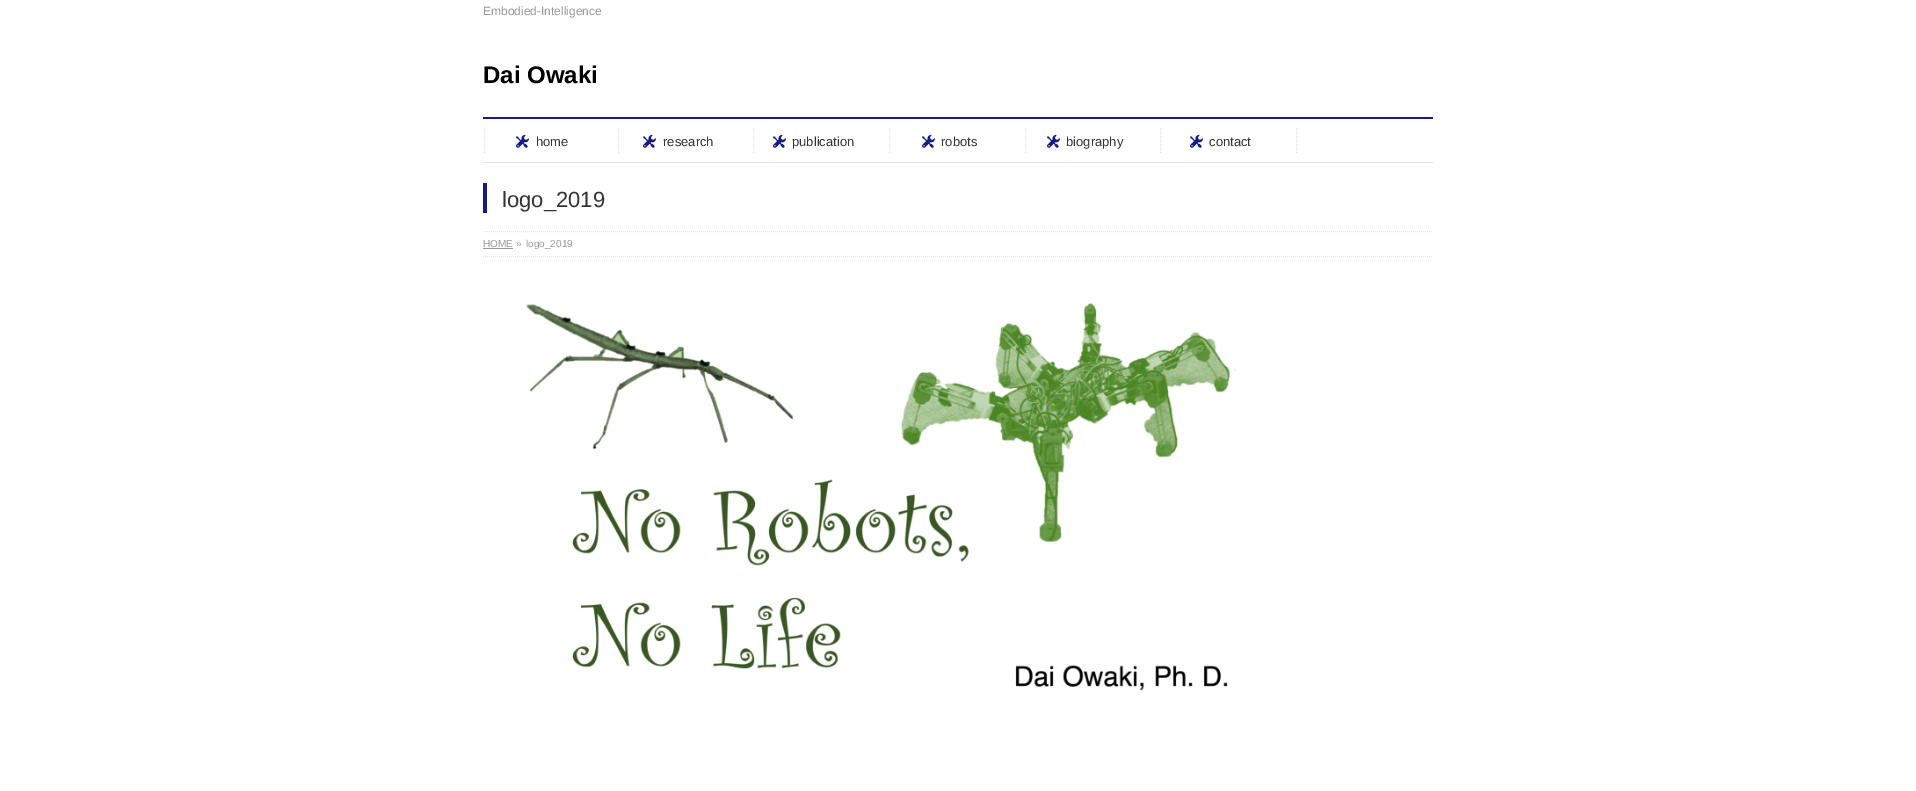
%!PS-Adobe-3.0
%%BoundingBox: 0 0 1916 791
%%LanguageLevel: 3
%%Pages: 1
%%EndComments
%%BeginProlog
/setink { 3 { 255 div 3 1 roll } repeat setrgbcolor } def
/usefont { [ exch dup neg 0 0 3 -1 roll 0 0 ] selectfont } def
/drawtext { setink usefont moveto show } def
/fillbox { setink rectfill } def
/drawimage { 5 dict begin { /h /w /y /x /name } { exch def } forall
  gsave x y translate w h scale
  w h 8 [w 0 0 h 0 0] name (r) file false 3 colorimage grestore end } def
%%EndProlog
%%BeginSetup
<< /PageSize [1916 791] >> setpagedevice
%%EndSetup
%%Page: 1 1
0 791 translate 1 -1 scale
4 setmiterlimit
0 0 1916 791 255 255 255 fillbox
(Embodied-Intelligence) 483 15 /LiberationSans-Regular 12 153 153 153 drawtext
(Dai Owaki) 483 83 /LiberationSans-Bold 24 0 0 0 drawtext
483 117 950 2 21 26 132 fillbox
483 162 950 1 229 229 229 fillbox
[1 1] 0 setdash
484.5 128 moveto 484.5 154 lineto stroke
(assets/img1.rgb) 516 134 13 14 drawimage
(home) 536 146 /LiberationSans-Regular 13 51 51 51 drawtext
229 229 229 setink
618.5 128 moveto 618.5 154 lineto stroke
(assets/img1.rgb) 643 134 13 14 drawimage
(research) 663 146 /LiberationSans-Regular 13 51 51 51 drawtext
229 229 229 setink
753.5 128 moveto 753.5 154 lineto stroke
(assets/img1.rgb) 773 134 13 14 drawimage
(publication) 792 146 /LiberationSans-Regular 13 51 51 51 drawtext
229 229 229 setink
889.5 128 moveto 889.5 154 lineto stroke
(assets/img1.rgb) 922 134 13 14 drawimage
(robots) 941 146 /LiberationSans-Regular 13 51 51 51 drawtext
229 229 229 setink
1025.5 128 moveto 1025.5 154 lineto stroke
(assets/img1.rgb) 1047 134 13 14 drawimage
(biography) 1066 146 /LiberationSans-Regular 13 51 51 51 drawtext
229 229 229 setink
1160.5 128 moveto 1160.5 154 lineto stroke
(assets/img1.rgb) 1190 134 13 14 drawimage
(contact) 1209 146 /LiberationSans-Regular 13 51 51 51 drawtext
229 229 229 setink
1296.5 128 moveto 1296.5 154 lineto stroke
483 183 4 30 21 26 132 fillbox
(logo_2019) 502 207 /LiberationSans-Regular 22 51 51 51 drawtext
229 229 229 setink
483 231.5 moveto 1433 231.5 lineto stroke
483 256.5 moveto 1433 256.5 lineto stroke
(HOME ») 483 247 /LiberationSans-Regular 10 153 153 153 drawtext
483 248 30 1 153 153 153 fillbox
(logo_2019) 526 247 /LiberationSans-Regular 10 153 153 153 drawtext
(assets/img2.rgb) 526 303 710 388 drawimage
showpage
%%EOF
